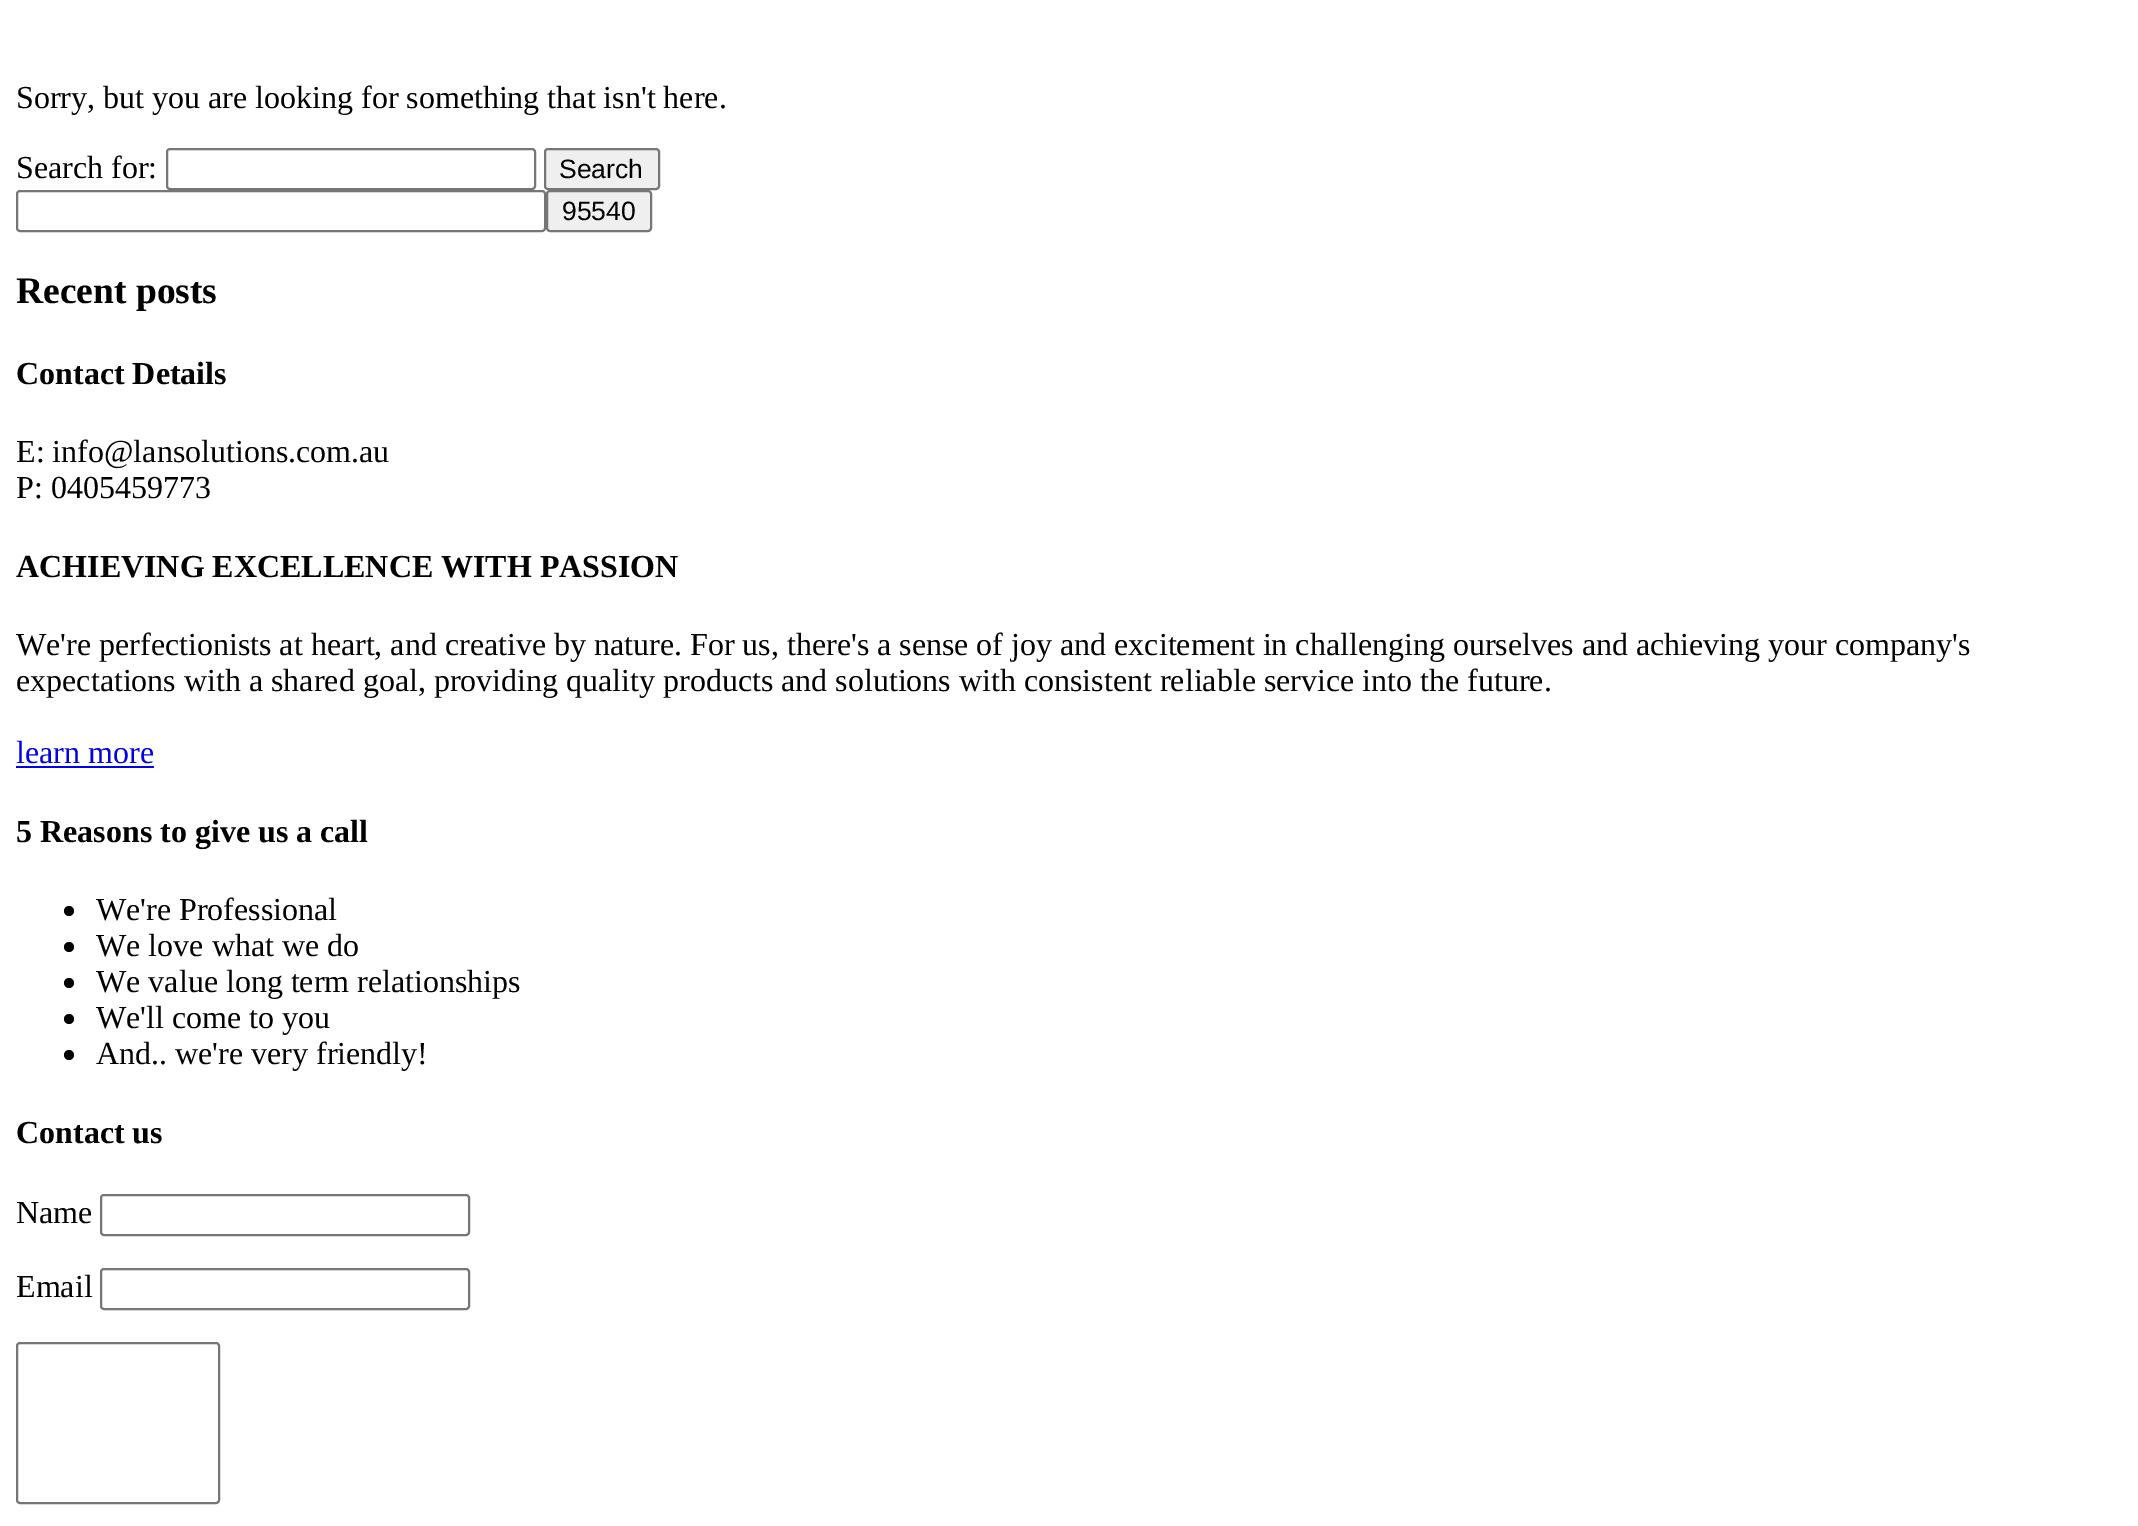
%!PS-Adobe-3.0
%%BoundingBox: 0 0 2138 1526
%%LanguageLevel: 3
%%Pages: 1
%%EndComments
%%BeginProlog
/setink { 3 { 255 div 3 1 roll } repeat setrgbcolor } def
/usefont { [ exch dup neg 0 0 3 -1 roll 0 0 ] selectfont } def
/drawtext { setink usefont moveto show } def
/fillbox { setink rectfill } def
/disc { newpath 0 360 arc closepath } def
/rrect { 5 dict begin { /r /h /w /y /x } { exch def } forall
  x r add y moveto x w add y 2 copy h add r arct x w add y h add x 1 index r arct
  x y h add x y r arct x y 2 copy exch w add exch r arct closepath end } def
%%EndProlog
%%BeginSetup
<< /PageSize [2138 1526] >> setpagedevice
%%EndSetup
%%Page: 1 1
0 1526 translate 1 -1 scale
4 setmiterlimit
0 0 2138 1526 255 255 255 fillbox
(Sorry, but you are looking for something that isn't here.) 16 108 /LiberationSerif-Regular 32 0 0 0 drawtext
(Search for:) 16 178 /LiberationSerif-Regular 32 0 0 0 drawtext
118 118 118 setink
2 setlinewidth
167 149 368 40 3 rrect stroke
239 239 239 setink
545 149 114 40 3 rrect gsave fill grestore
118 118 118 setink
stroke
(Search) 559 178 /LiberationSans-Regular 26.5 0 0 0 drawtext
118 118 118 setink
17 191 528 40 3 rrect stroke
239 239 239 setink
547 191 104 40 3 rrect gsave fill grestore
118 118 118 setink
stroke
(95540) 562 220 /LiberationSans-Regular 26.5 0 0 0 drawtext
(Recent posts) 16 303 /LiberationSerif-Bold 37.5 0 0 0 drawtext
(Contact Details) 16 384 /LiberationSerif-Bold 32 0 0 0 drawtext
(E: info@lansolutions.com.au) 16 462 /LiberationSerif-Regular 32 0 0 0 drawtext
(P: 0405459773) 16 498 /LiberationSerif-Regular 32 0 0 0 drawtext
(ACHIEVING EXCELLENCE WITH PASSION) 16 577 /LiberationSerif-Bold 32 0 0 0 drawtext
(We're perfectionists at heart, and creative by nature. For us, there's a sense of joy and excitement in challenging ourselves and achieving your company's) 16 655 /LiberationSerif-Regular 32 0 0 0 drawtext
(expectations with a shared goal, providing quality products and solutions with consistent reliable service into the future.) 16 691 /LiberationSerif-Regular 32 0 0 0 drawtext
(learn more) 16 763 /LiberationSerif-Regular 32 0 0 238 drawtext
16 766 138 2 0 0 238 fillbox
(5 Reasons to give us a call) 16 842 /LiberationSerif-Bold 32 0 0 0 drawtext
69 911 5 disc fill
(We're Professional) 96 920 /LiberationSerif-Regular 32 0 0 0 drawtext
69 947 5 disc fill
(We love what we do) 96 956 /LiberationSerif-Regular 32 0 0 0 drawtext
69 983 5 disc fill
(We value long term relationships) 96 992 /LiberationSerif-Regular 32 0 0 0 drawtext
69 1019 5 disc fill
(We'll come to you) 96 1028 /LiberationSerif-Regular 32 0 0 0 drawtext
69 1055 5 disc fill
(And.. we're very friendly!) 96 1064 /LiberationSerif-Regular 32 0 0 0 drawtext
(Contact us) 16 1143 /LiberationSerif-Bold 32 0 0 0 drawtext
(Name) 16 1223 /LiberationSerif-Regular 32 0 0 0 drawtext
118 118 118 setink
101 1195 368 40 3 rrect stroke
(Email) 16 1297 /LiberationSerif-Regular 32 0 0 0 drawtext
118 118 118 setink
101 1269 368 40 3 rrect stroke
17 1343 202 160 3 rrect stroke
showpage
%%EOF
